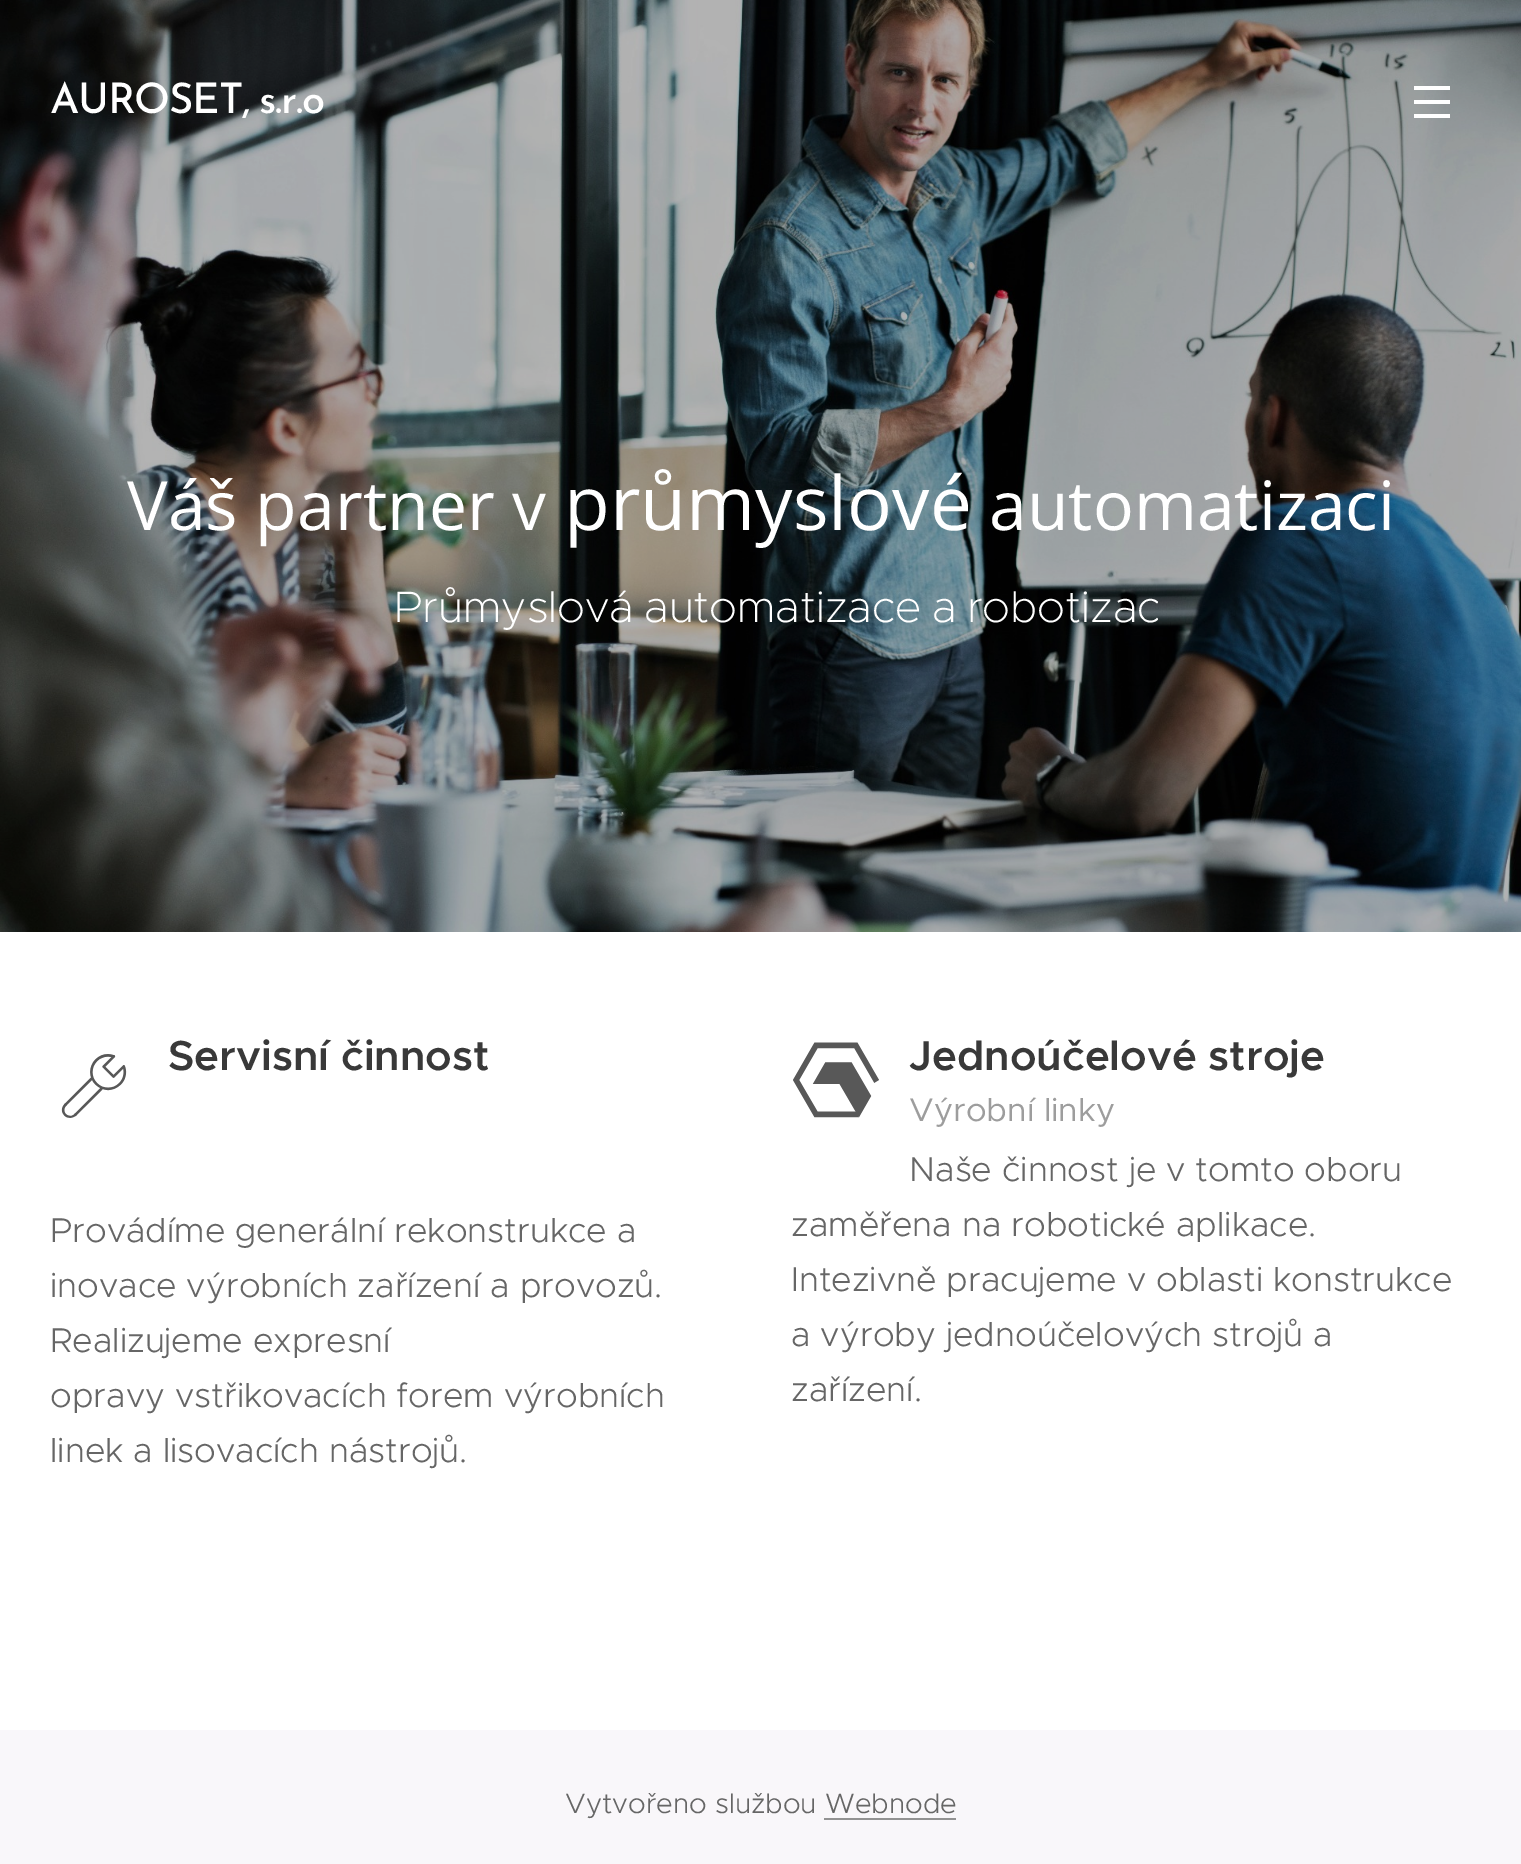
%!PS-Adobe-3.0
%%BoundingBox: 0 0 1521 1864
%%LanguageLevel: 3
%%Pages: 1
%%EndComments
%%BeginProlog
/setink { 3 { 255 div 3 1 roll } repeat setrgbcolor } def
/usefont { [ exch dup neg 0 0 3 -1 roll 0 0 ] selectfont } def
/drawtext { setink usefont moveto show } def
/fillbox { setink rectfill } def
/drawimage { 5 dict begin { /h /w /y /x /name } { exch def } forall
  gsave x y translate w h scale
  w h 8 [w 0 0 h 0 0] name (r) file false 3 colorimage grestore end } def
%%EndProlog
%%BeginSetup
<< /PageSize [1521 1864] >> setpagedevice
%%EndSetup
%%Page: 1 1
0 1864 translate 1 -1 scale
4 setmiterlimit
0 0 1521 1864 255 255 255 fillbox
(assets/img1.rgb) 0 0 1521 932 drawimage
/JosefinSans-Medium 42 usefont
50 113 moveto -2 0 32 -1.25 0 (AUROSET, s.r.o) awidthshow
1414 100 36 4 255 255 255 fillbox
1414 86 36 4 255 255 255 fillbox
1414 114 36 4 255 255 255 fillbox
(Váš partner v) 127 530 /OpenSans-Regular 68 255 255 255 drawtext
(průmyslové) 564 530 /OpenSans-Regular 74.75 255 255 255 drawtext
(automatizaci) 989 530 /OpenSans-Regular 68 255 255 255 drawtext
gsave
364 566 794 86 rectclip
/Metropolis-ExtraLight 44 usefont
394 622 moveto -2.5 0 32 (Průmyslová automatizace a robotizac) widthshow
grestore
(assets/img2.rgb) 61 1054 66 64 drawimage
(Servisní činnost) 168 1070 /Metropolis-SemiBold 42 57 57 57 drawtext
(Provádíme generální rekonstrukce a) 50 1242 /Metropolis-Light 34.4 102 102 102 drawtext
(inovace výrobních zařízení a provozů.) 50 1297 /Metropolis-Light 34.4 102 102 102 drawtext
(Realizujeme expresní) 50 1352 /Metropolis-Light 34.4 102 102 102 drawtext
(opravy vstřikovacích forem výrobních) 50 1407 /Metropolis-Light 34.4 102 102 102 drawtext
(linek a lisovacích nástrojů.) 50 1462 /Metropolis-Light 34.4 102 102 102 drawtext
(Jednoúčelové stroje) 909 1070 /Metropolis-SemiBold 42 57 57 57 drawtext
(Výrobní linky) 909 1121 /Metropolis-Regular 32.75 157 157 157 drawtext
(Naše činnost je v tomto oboru) 909 1181 /Metropolis-Light 34.4 102 102 102 drawtext
(zaměřena na robotické aplikace.) 791 1236 /Metropolis-Light 34.4 102 102 102 drawtext
(Intezivně pracujeme v oblasti konstrukce) 791 1291 /Metropolis-Light 34.4 102 102 102 drawtext
(a výroby jednoúčelových strojů a) 791 1346 /Metropolis-Light 34.4 102 102 102 drawtext
(zařízení.) 791 1401 /Metropolis-Light 34.4 102 102 102 drawtext
(assets/img3.rgb) 793 1042 86 76 drawimage
0 1730 1521 134 249 247 250 fillbox
(Vytvořeno službou Webnode) 565 1813 /Metropolis-Light 28 102 102 102 drawtext
824 1818 132 2 146 146 146 fillbox
showpage
%%EOF
